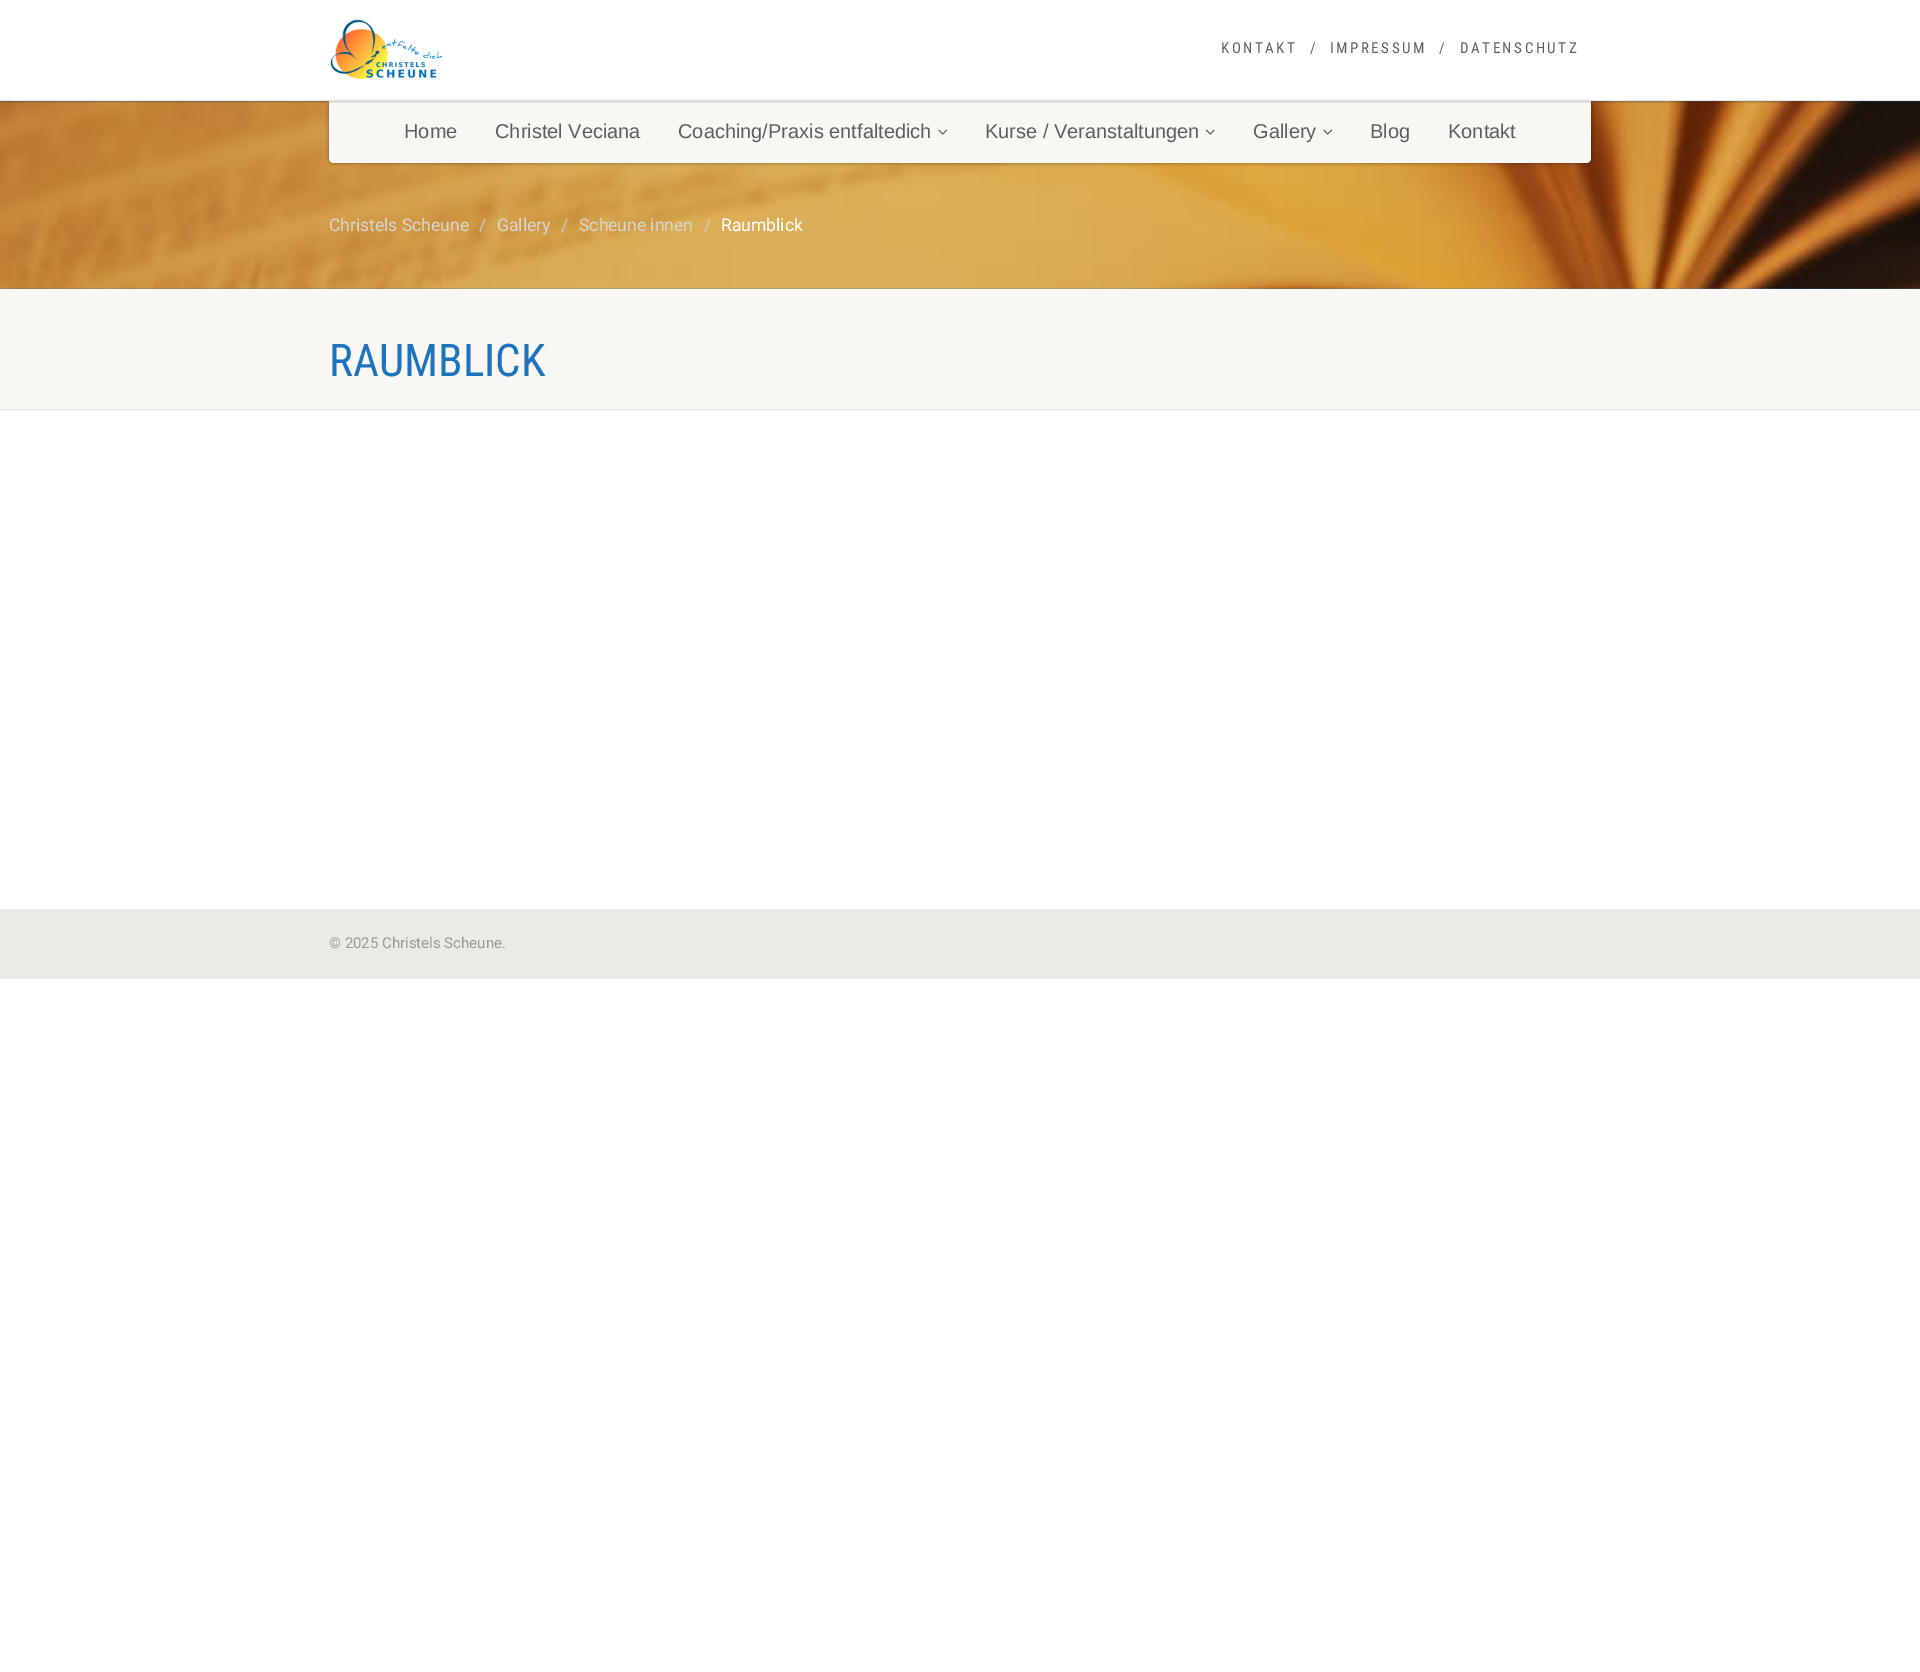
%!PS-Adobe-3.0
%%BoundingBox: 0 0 1920 1672
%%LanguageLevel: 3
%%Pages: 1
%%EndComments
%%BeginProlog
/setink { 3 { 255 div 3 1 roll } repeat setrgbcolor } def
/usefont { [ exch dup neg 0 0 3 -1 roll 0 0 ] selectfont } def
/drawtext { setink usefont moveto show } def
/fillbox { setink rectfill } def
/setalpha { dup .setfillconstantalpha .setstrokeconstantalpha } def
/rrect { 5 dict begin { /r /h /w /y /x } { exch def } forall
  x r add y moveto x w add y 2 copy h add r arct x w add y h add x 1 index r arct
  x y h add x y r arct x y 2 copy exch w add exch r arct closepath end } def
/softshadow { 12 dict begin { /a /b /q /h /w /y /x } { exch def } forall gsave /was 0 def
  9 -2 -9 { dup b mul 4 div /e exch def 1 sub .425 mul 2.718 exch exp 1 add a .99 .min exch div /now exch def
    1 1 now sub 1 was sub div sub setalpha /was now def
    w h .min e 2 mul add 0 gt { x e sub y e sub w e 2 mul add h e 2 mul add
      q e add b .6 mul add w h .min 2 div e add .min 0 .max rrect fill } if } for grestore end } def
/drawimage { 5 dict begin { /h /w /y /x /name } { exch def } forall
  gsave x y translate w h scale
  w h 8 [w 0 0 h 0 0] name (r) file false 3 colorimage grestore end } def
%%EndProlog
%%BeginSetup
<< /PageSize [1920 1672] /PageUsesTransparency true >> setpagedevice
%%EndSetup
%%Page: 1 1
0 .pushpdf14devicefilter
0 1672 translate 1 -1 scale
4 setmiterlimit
0 0 1920 1672 255 255 255 fillbox
(assets/img4.rgb) 0 101 1920 188 drawimage
0 0 0 setink
329 100 1262 63 5 2 0.4 softshadow
248 247 243 setink
329 100 moveto 1591 100 lineto 1591 158 lineto 1591 161 1589 163 1586 163 curveto 334 163 lineto 331 163 329 161 329 158 curveto closepath fill
0.1 setalpha
0 100 1920 3 0 0 0 fillbox
0.8 setalpha
328 96 1264 4 255 255 255 fillbox
1 setalpha
(assets/img1.rgb) 330 19 113 60 drawimage
/RobotoCondensed-Regular 15 usefont
94 94 94 setink
1221 53 moveto 2.5 0 (KONTAKT) ashow
102 102 102 setink
1310 53 moveto 2.5 0 (/) ashow
94 94 94 setink
1330 53 moveto 2.5 0 (IMPRESSUM) ashow
102 102 102 setink
1439 53 moveto 2.5 0 (/) ashow
94 94 94 setink
1460 53 moveto 2.5 0 (DATENSCHUTZ) ashow
(Home) 404 138 /LiberationSans-Regular 20 94 94 94 drawtext
(Christel Veciana) 495 138 /LiberationSans-Regular 20 94 94 94 drawtext
(Coaching/Praxis entfaltedich) 678 138 /LiberationSans-Regular 20 94 94 94 drawtext
(assets/img2.rgb) 938 129 10 6 drawimage
(Kurse / Veranstaltungen) 985 138 /LiberationSans-Regular 20 94 94 94 drawtext
(assets/img3.rgb) 1205 129 10 6 drawimage
(Gallery) 1253 138 /LiberationSans-Regular 20 94 94 94 drawtext
(assets/img2.rgb) 1323 129 10 6 drawimage
(Blog) 1370 138 /LiberationSans-Regular 20 94 94 94 drawtext
(Kontakt) 1448 138 /LiberationSans-Regular 20 94 94 94 drawtext
(Christels Scheune) 329 231 /Roboto-Regular 17.5 216 214 209 drawtext
(/) 479 231 /Roboto-Regular 17.5 204 204 204 drawtext
(Gallery) 497 231 /Roboto-Regular 17.5 216 214 209 drawtext
(/) 561 231 /Roboto-Regular 17.5 204 204 204 drawtext
(Scheune innen) 579 231 /Roboto-Regular 17.5 216 214 209 drawtext
(/) 704 231 /Roboto-Regular 17.5 204 204 204 drawtext
(Raumblick) 721 231 /Roboto-Regular 17.5 255 255 255 drawtext
0 409 1920 2 237 237 237 fillbox
0 289 1920 120 248 247 243 fillbox
(RAUMBLICK) 329 376 /RobotoCondensed-Regular 45 30 115 190 drawtext
0 909 1920 70 236 234 228 fillbox
(© 2025 Christels Scheune.) 329 948 /Roboto-Regular 15 153 153 153 drawtext
.poppdf14devicefilter showpage
%%EOF
